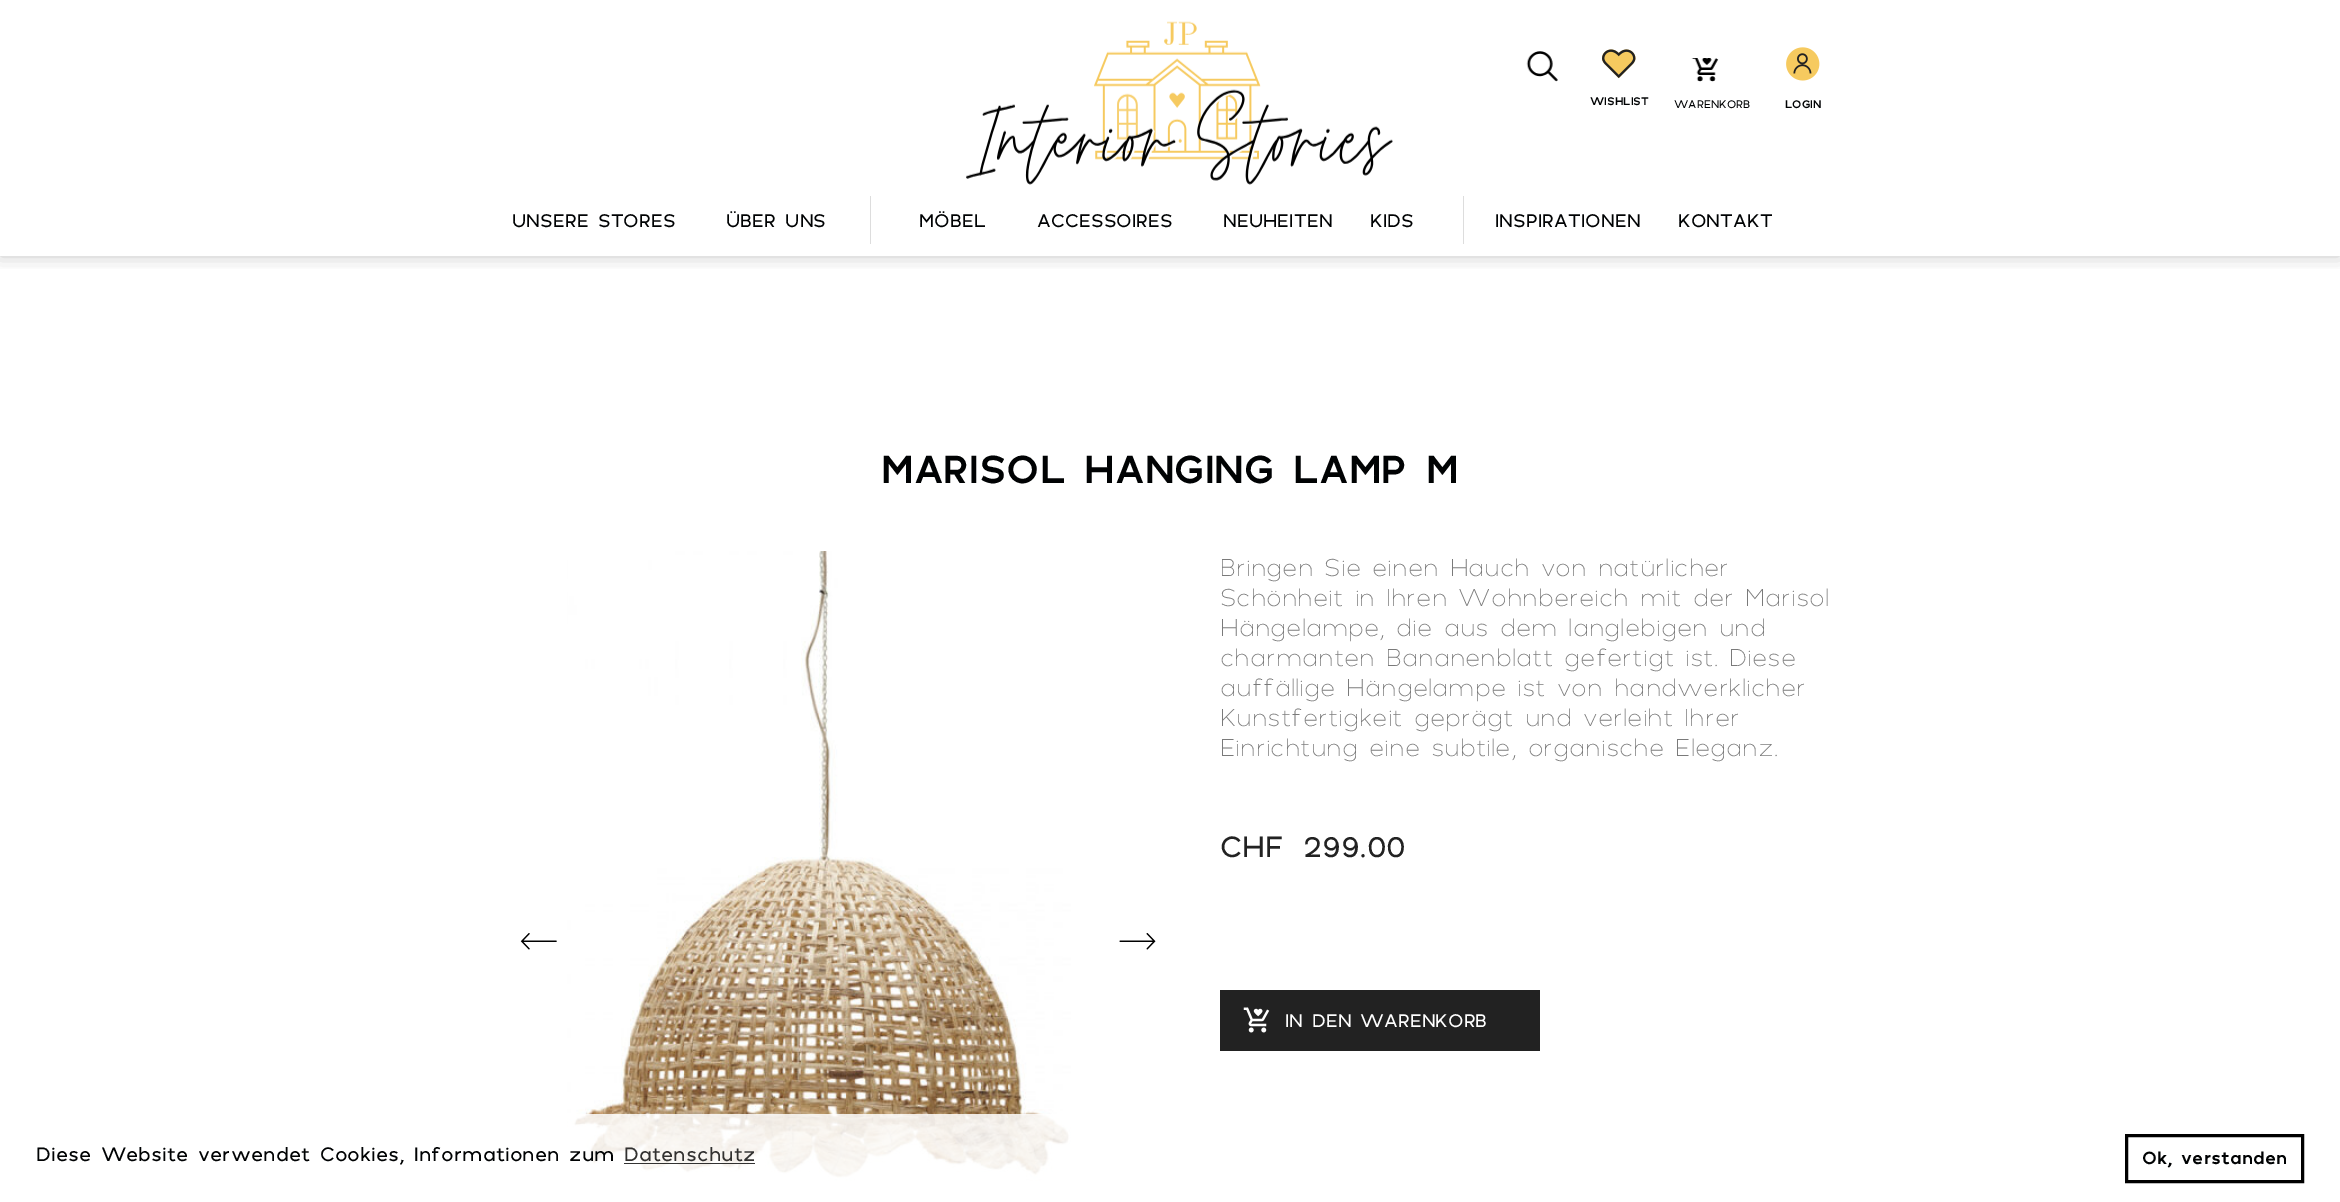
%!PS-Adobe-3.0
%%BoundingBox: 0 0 2340 1202
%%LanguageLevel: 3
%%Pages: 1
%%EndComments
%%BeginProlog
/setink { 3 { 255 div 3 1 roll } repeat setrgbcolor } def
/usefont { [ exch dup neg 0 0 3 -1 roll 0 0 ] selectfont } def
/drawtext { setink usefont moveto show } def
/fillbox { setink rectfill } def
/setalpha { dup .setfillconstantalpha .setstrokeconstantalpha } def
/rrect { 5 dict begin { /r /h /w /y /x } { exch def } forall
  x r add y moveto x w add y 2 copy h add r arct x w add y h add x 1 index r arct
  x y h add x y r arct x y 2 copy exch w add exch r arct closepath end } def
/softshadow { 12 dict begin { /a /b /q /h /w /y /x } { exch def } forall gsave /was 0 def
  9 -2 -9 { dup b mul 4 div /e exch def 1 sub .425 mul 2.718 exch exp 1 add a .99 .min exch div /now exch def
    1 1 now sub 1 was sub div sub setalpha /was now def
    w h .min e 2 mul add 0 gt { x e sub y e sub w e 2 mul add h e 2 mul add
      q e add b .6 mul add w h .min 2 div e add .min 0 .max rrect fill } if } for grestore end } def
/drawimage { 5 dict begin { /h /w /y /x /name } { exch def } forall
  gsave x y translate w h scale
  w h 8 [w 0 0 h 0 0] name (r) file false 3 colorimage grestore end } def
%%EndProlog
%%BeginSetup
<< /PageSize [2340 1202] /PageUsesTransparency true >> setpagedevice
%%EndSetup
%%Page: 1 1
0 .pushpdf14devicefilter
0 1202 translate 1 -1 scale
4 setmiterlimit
0 0 2340 1202 255 255 255 fillbox
gsave
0 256 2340 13 rectclip
51 51 51 setink
0 0 2340 256 0 9 0.28 softshadow
grestore
(assets/img1.rgb) 966 21 427 164 drawimage
(assets/img2.rgb) 1526 51 32 31 drawimage
(assets/img3.rgb) 1602 49 34 30 drawimage
(WISHLIST) 1590 105 /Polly-Bold 11.25 0 2 3 drawtext
(assets/img4.rgb) 1691 58 28 24 drawimage
(WARENKORB) 1674 108 /Polly-Regular 11.25 0 2 3 drawtext
(assets/img5.rgb) 1786 47 34 34 drawimage
(LOGIN) 1785 108 /Polly-Bold 11.25 0 2 3 drawtext
/Polly-Regular 18.75 usefont
512 227 moveto 0.1 0 (UNSERE STORES) ashow
726 227 moveto 0.1 0 (ÜBER UNS) ashow
1463 196 1 48 221 221 221 fillbox
870 196 1 48 221 221 221 fillbox
0 2 3 setink
919 227 moveto 0.1 0 (MÖBEL) ashow
1037 227 moveto 0.1 0 (ACCESSOIRES) ashow
1223 227 moveto 0.1 0 (NEUHEITEN) ashow
1370 227 moveto 0.1 0 (KIDS) ashow
1495 227 moveto 0.1 0 (INSPIRATIONEN) ashow
1678 227 moveto 0.1 0 (KONTAKT) ashow
(MARISOL HANGING LAMP M) 881 483 /Polly-Bold 40 0 2 3 drawtext
(assets/img6.rgb) 567 551 504 630 drawimage
(assets/img7.rgb) 520 933 37 17 drawimage
(assets/img8.rgb) 1119 933 37 17 drawimage
(Bringen Sie einen Hauch von natürlicher) 1220 576 /Polly-Light 25 122 122 122 drawtext
(Schönheit in Ihren Wohnbereich mit der Marisol) 1220 606 /Polly-Light 25 122 122 122 drawtext
(Hängelampe, die aus dem langlebigen und) 1220 636 /Polly-Light 25 122 122 122 drawtext
(charmanten Bananenblatt gefertigt ist. Diese) 1220 666 /Polly-Light 25 122 122 122 drawtext
(auffällige Hängelampe ist von handwerklicher) 1220 696 /Polly-Light 25 122 122 122 drawtext
(Kunstfertigkeit geprägt und verleiht Ihrer) 1220 726 /Polly-Light 25 122 122 122 drawtext
(Einrichtung eine subtile, organische Eleganz.) 1220 756 /Polly-Light 25 122 122 122 drawtext
(CHF) 1220 857 /Polly-Regular 30 34 34 34 drawtext
(299.00) 1303 857 /Polly-Regular 30 34 34 34 drawtext
1220 990 320 61 34 34 34 fillbox
(assets/img9.rgb) 1243 1007 27 26 drawimage
(IN DEN WARENKORB) 1285 1027 /Polly-Regular 18.75 255 255 255 drawtext
0.85 setalpha
567 1114 504 67 255 255 255 fillbox
1 setalpha
(Diese Website verwendet Cookies, Informationen zum) 36 1161 /Polly-Regular 20 0 2 3 drawtext
(Datenschutz) 624 1161 /Polly-Regular 20 50 49 48 drawtext
0.8 setalpha
624 1163 131 1 0 0 0 fillbox
1 setalpha
3 setlinewidth
2126.5 1135.5 176 46 rectstroke
(Ok, verstanden) 2142 1164 /Polly-Bold 18 0 2 3 drawtext
.poppdf14devicefilter showpage
%%EOF
